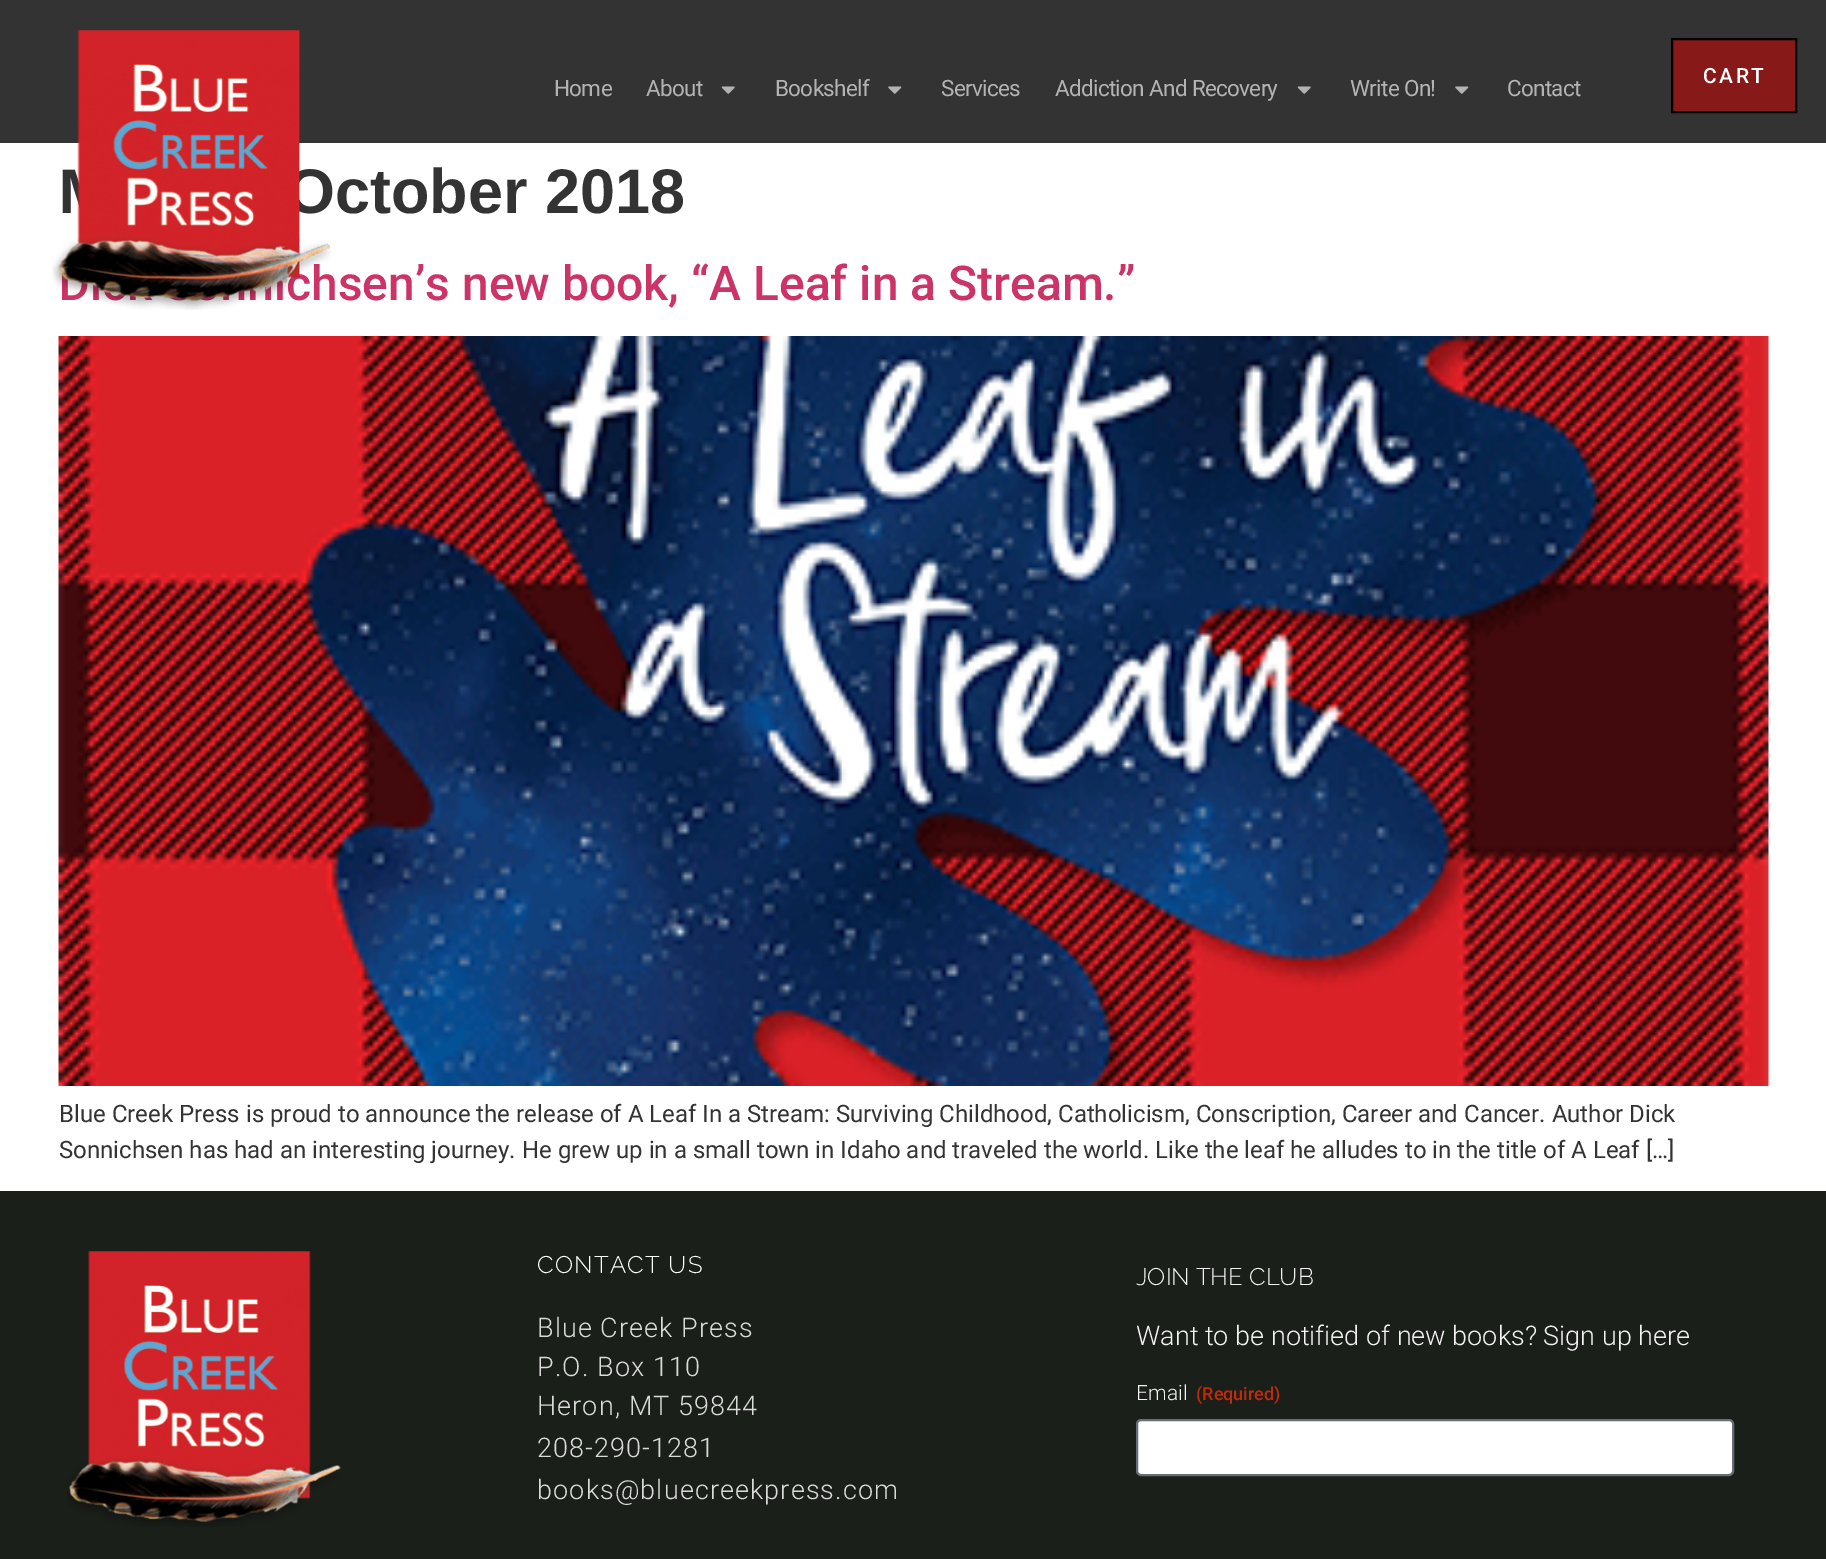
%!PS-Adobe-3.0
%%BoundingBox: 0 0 1826 1559
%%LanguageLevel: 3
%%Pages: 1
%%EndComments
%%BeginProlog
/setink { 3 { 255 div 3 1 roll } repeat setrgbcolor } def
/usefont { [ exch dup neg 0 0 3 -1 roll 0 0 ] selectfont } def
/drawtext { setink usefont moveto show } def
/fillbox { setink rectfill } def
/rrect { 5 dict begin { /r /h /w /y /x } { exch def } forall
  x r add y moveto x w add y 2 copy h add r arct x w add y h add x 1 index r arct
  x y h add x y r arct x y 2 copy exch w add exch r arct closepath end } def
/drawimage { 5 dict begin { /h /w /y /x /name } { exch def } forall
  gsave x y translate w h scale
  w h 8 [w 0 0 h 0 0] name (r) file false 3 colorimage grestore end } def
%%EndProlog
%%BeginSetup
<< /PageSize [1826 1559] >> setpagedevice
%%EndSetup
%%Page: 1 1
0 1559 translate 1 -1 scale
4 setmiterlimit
0 0 1826 1559 255 255 255 fillbox
0 0 1826 143 51 51 51 fillbox
(October 2018) 286 213 /LiberationSans-Bold 63 51 51 51 drawtext
(hsen’s new book, “A Leaf in a Stream.”) 311 300 /Roboto-Medium 48 204 51 102 drawtext
(assets/img1.rgb) 52 30 279 280 drawimage
136 25 25 setink
1672 39 moveto 1796 39 lineto 1796 112 lineto 1672 112 lineto closepath gsave fill grestore
0 0 0 setink
2 setlinewidth
stroke
/Roboto-Medium 21 usefont
255 255 255 setink
1703 83 moveto 2.5 0 (CART) ashow
/Roboto-Regular 22.5 usefont
179 179 179 setink
554 96 moveto -0.7 0 (Home) ashow
646 96 moveto -0.7 0 (About) ashow
(assets/img2.rgb) 721 86 14 8 drawimage
775 96 moveto -0.7 0 (Bookshelf) ashow
(assets/img3.rgb) 888 86 14 8 drawimage
941 96 moveto -0.7 0 (Services) ashow
1055 96 moveto -0.7 0 (Addiction And Recovery) ashow
(assets/img2.rgb) 1297 86 14 8 drawimage
1350 96 moveto -0.7 0 (Write On!) ashow
(assets/img3.rgb) 1455 86 14 8 drawimage
1507 96 moveto -0.7 0 (Contact) ashow
(assets/img4.rgb) 58 336 1711 750 drawimage
(Blue Creek Press is proud to announce the release of A Leaf In a Stream: Surviving Childhood, Catholicism, Conscription, Career and Cancer. Author Dick) 59 1122 /Roboto-Regular 24 51 51 51 drawtext
(Sonnichsen has had an interesting journey. He grew up in a small town in Idaho and traveled the world. Like the leaf he alludes to in the title of A Leaf […]) 59 1158 /Roboto-Regular 24 51 51 51 drawtext
0 1191 1826 368 27 31 26 fillbox
(assets/img5.rgb) 67 1251 274 276 drawimage
/Raleway-Light 24 usefont
255 255 255 setink
537 1273 moveto 1.25 0 (CONTACT US) ashow
/Roboto-Light 27 usefont
218 218 218 setink
537 1337 moveto 1.1 0 (Blue Creek Press) ashow
537 1376 moveto 1.1 0 (P.O. Box 110) ashow
537 1415 moveto 1.1 0 (Heron, MT 59844) ashow
537 1457 moveto 1.1 0 (208-290-1281) ashow
537 1499 moveto 1.1 0 (books@bluecreekpress.com) ashow
(JOIN THE CLUB) 1136 1285 /Raleway-Light 24 243 243 243 drawtext
(Want to be notified of new books? Sign up here) 1136 1345 /Roboto-Light 27 243 243 243 drawtext
(Email) 1136 1400 /Roboto-Light 21 243 243 243 drawtext
(\(Required\)) 1196 1400 /Roboto-Medium 18 192 43 10 drawtext
255 255 255 setink
1137 1420 596 55 4 rrect gsave fill grestore
104 110 119 setink
stroke
showpage
%%EOF
